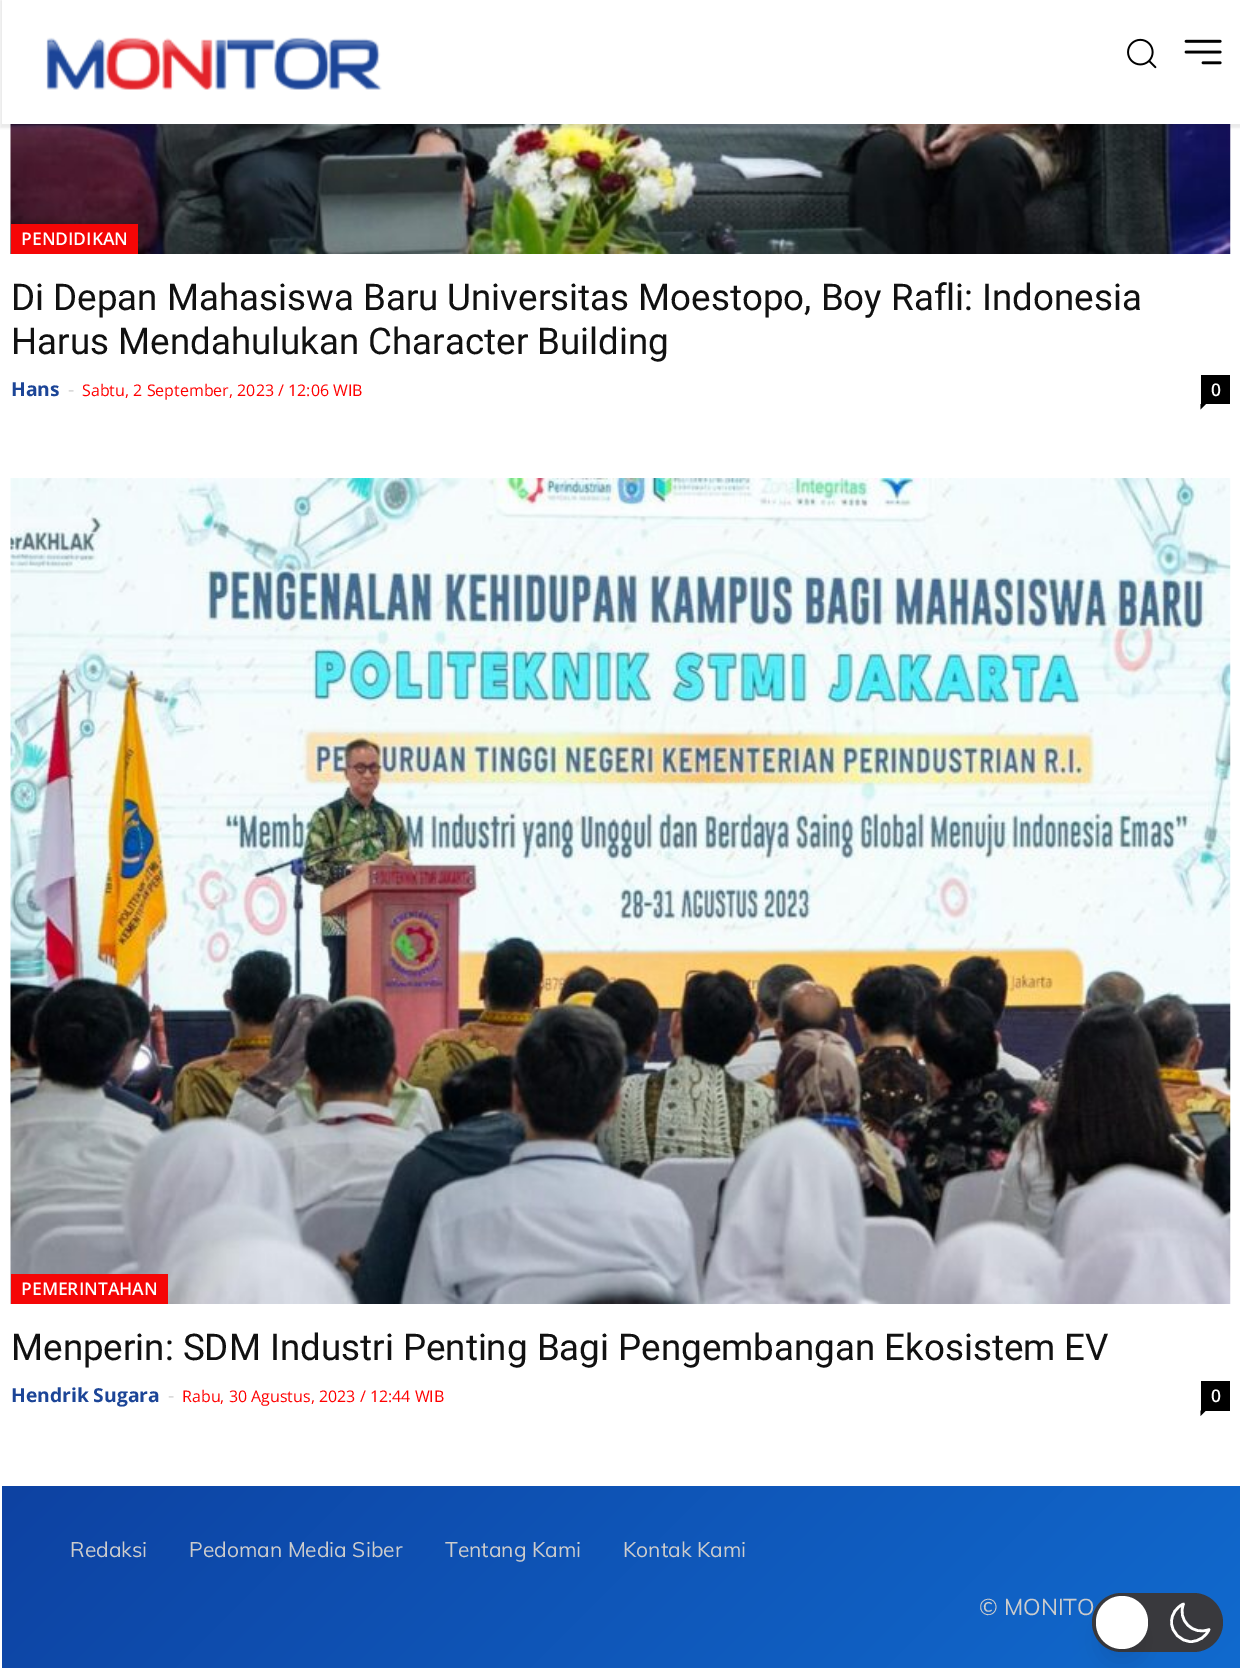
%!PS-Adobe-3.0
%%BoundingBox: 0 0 1240 1668
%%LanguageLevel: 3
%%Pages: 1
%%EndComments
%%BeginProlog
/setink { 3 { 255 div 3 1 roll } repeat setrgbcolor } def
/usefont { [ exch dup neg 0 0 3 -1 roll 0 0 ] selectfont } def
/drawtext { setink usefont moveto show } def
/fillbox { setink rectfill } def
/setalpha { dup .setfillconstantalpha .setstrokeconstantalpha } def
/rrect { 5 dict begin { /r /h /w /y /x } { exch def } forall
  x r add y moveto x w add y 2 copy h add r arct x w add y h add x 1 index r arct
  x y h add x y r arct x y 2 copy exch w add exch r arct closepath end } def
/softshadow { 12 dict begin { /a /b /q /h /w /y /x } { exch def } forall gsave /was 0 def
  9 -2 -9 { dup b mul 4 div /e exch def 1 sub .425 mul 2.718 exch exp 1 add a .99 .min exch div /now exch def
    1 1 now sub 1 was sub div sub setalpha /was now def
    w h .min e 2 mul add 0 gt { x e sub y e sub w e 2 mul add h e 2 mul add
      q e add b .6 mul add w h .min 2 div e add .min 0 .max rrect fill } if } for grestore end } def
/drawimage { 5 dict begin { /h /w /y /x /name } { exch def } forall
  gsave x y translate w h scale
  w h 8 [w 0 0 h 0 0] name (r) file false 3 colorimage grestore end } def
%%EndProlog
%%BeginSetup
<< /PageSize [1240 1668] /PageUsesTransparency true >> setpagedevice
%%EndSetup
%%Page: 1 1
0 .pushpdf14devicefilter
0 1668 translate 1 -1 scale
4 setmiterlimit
0 0 1240 1668 255 255 255 fillbox
(assets/img1.rgb) 46 37 336 53 drawimage
(assets/img2.rgb) 1127 38 30 31 drawimage
(assets/img3.rgb) 1184 39 38 26 drawimage
(assets/img4.rgb) 10 124 1221 130 drawimage
gsave
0 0 moveto 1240 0 lineto 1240 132 lineto 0 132 lineto closepath 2 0 moveto 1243 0 lineto 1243 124 lineto 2 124 lineto closepath eoclip newpath
0 0 0 setink
0 0 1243 128 0 1 0.08 softshadow
grestore
11 224 127 30 245 6 6 fillbox
(PENDIDIKAN) 21 245 /OpenSans-SemiBold 17.5 255 255 255 drawtext
(Di Depan Mahasiswa Baru Universitas Moestopo, Boy Rafli: Indonesia) 11 310 /Roboto-Regular 36.75 17 17 17 drawtext
(Harus Mendahulukan Character Building) 11 354 /Roboto-Regular 36.75 17 17 17 drawtext
(Hans) 11 396 /OpenSans-Bold 19.25 28 69 151 drawtext
(-) 68 396 /OpenSans-Regular 19.25 204 204 204 drawtext
(Sabtu, 2 September, 2023 / 12:06 WIB) 82 396 /OpenSans-Regular 16 255 0 0 drawtext
1201 375 29 29 0 0 0 fillbox
(0) 1211 396 /OpenSans-SemiBold 17.5 255 255 255 drawtext
0 0 0 setink
1200.5 404 moveto 1206 404 lineto 1200.5 409.5 lineto closepath fill
(assets/img5.rgb) 10 478 1221 826 drawimage
11 1274 157 30 245 6 6 fillbox
(PEMERINTAHAN) 21 1295 /OpenSans-SemiBold 17.5 255 255 255 drawtext
(Menperin: SDM Industri Penting Bagi Pengembangan Ekosistem EV) 11 1360 /Roboto-Regular 36.75 17 17 17 drawtext
(Hendrik Sugara) 11 1402 /OpenSans-Bold 19.25 28 69 151 drawtext
(-) 168 1402 /OpenSans-Regular 19.25 204 204 204 drawtext
(Rabu, 30 Agustus, 2023 / 12:44 WIB) 182 1402 /OpenSans-Regular 16 255 0 0 drawtext
1201 1381 29 30 0 0 0 fillbox
(0) 1211 1402 /OpenSans-SemiBold 17.5 255 255 255 drawtext
0 0 0 setink
1200.5 1410.5 moveto 1206 1410.5 lineto 1200.5 1416 lineto closepath fill
gsave 2 1486 moveto 1240 1486 lineto 1240 1668 lineto 2 1668 lineto closepath clip newpath
<< /ShadingType 2 /ColorSpace /DeviceRGB /Coords [977 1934 265 1222] /Extend [true true] /Function << /FunctionType 2 /Domain [0 1] /C0 [0.067 0.416 0.808] /C1 [0.051 0.259 0.635] /N 1 >> >> shfill grestore
(Redaksi) 70 1557 /Muli-Regular 21 204 204 204 drawtext
(Pedoman Media Siber) 189 1557 /Muli-Regular 21 204 204 204 drawtext
(Tentang Kami) 445 1557 /Muli-Regular 21 204 204 204 drawtext
(Kontak Kami) 623 1557 /Muli-Regular 21 204 204 204 drawtext
(© MONITO) 979 1615 /Muli-Regular 22.75 204 204 204 drawtext
57 57 61 setink
1092 1593 131 59 29.5 rrect fill
255 255 255 setink
2.6 setlinewidth
1 setlinecap
1 setlinejoin
1209 1629.5 moveto 1193 1636 1177 1620 1183.5 1604 curveto 1176.5 1607 1171.5 1614 1171.5 1622 curveto 1171.5 1632.5 1180.5 1641.5 1191 1641.5 curveto 1199 1641.5 1206 1636.5 1209 1629.5 curveto closepath stroke
0 0 0 setink
1101 1619 42 42 21 13 0.1 softshadow
255 255 255 setink
1096 1596 52 53 26 rrect fill
.poppdf14devicefilter showpage
%%EOF
